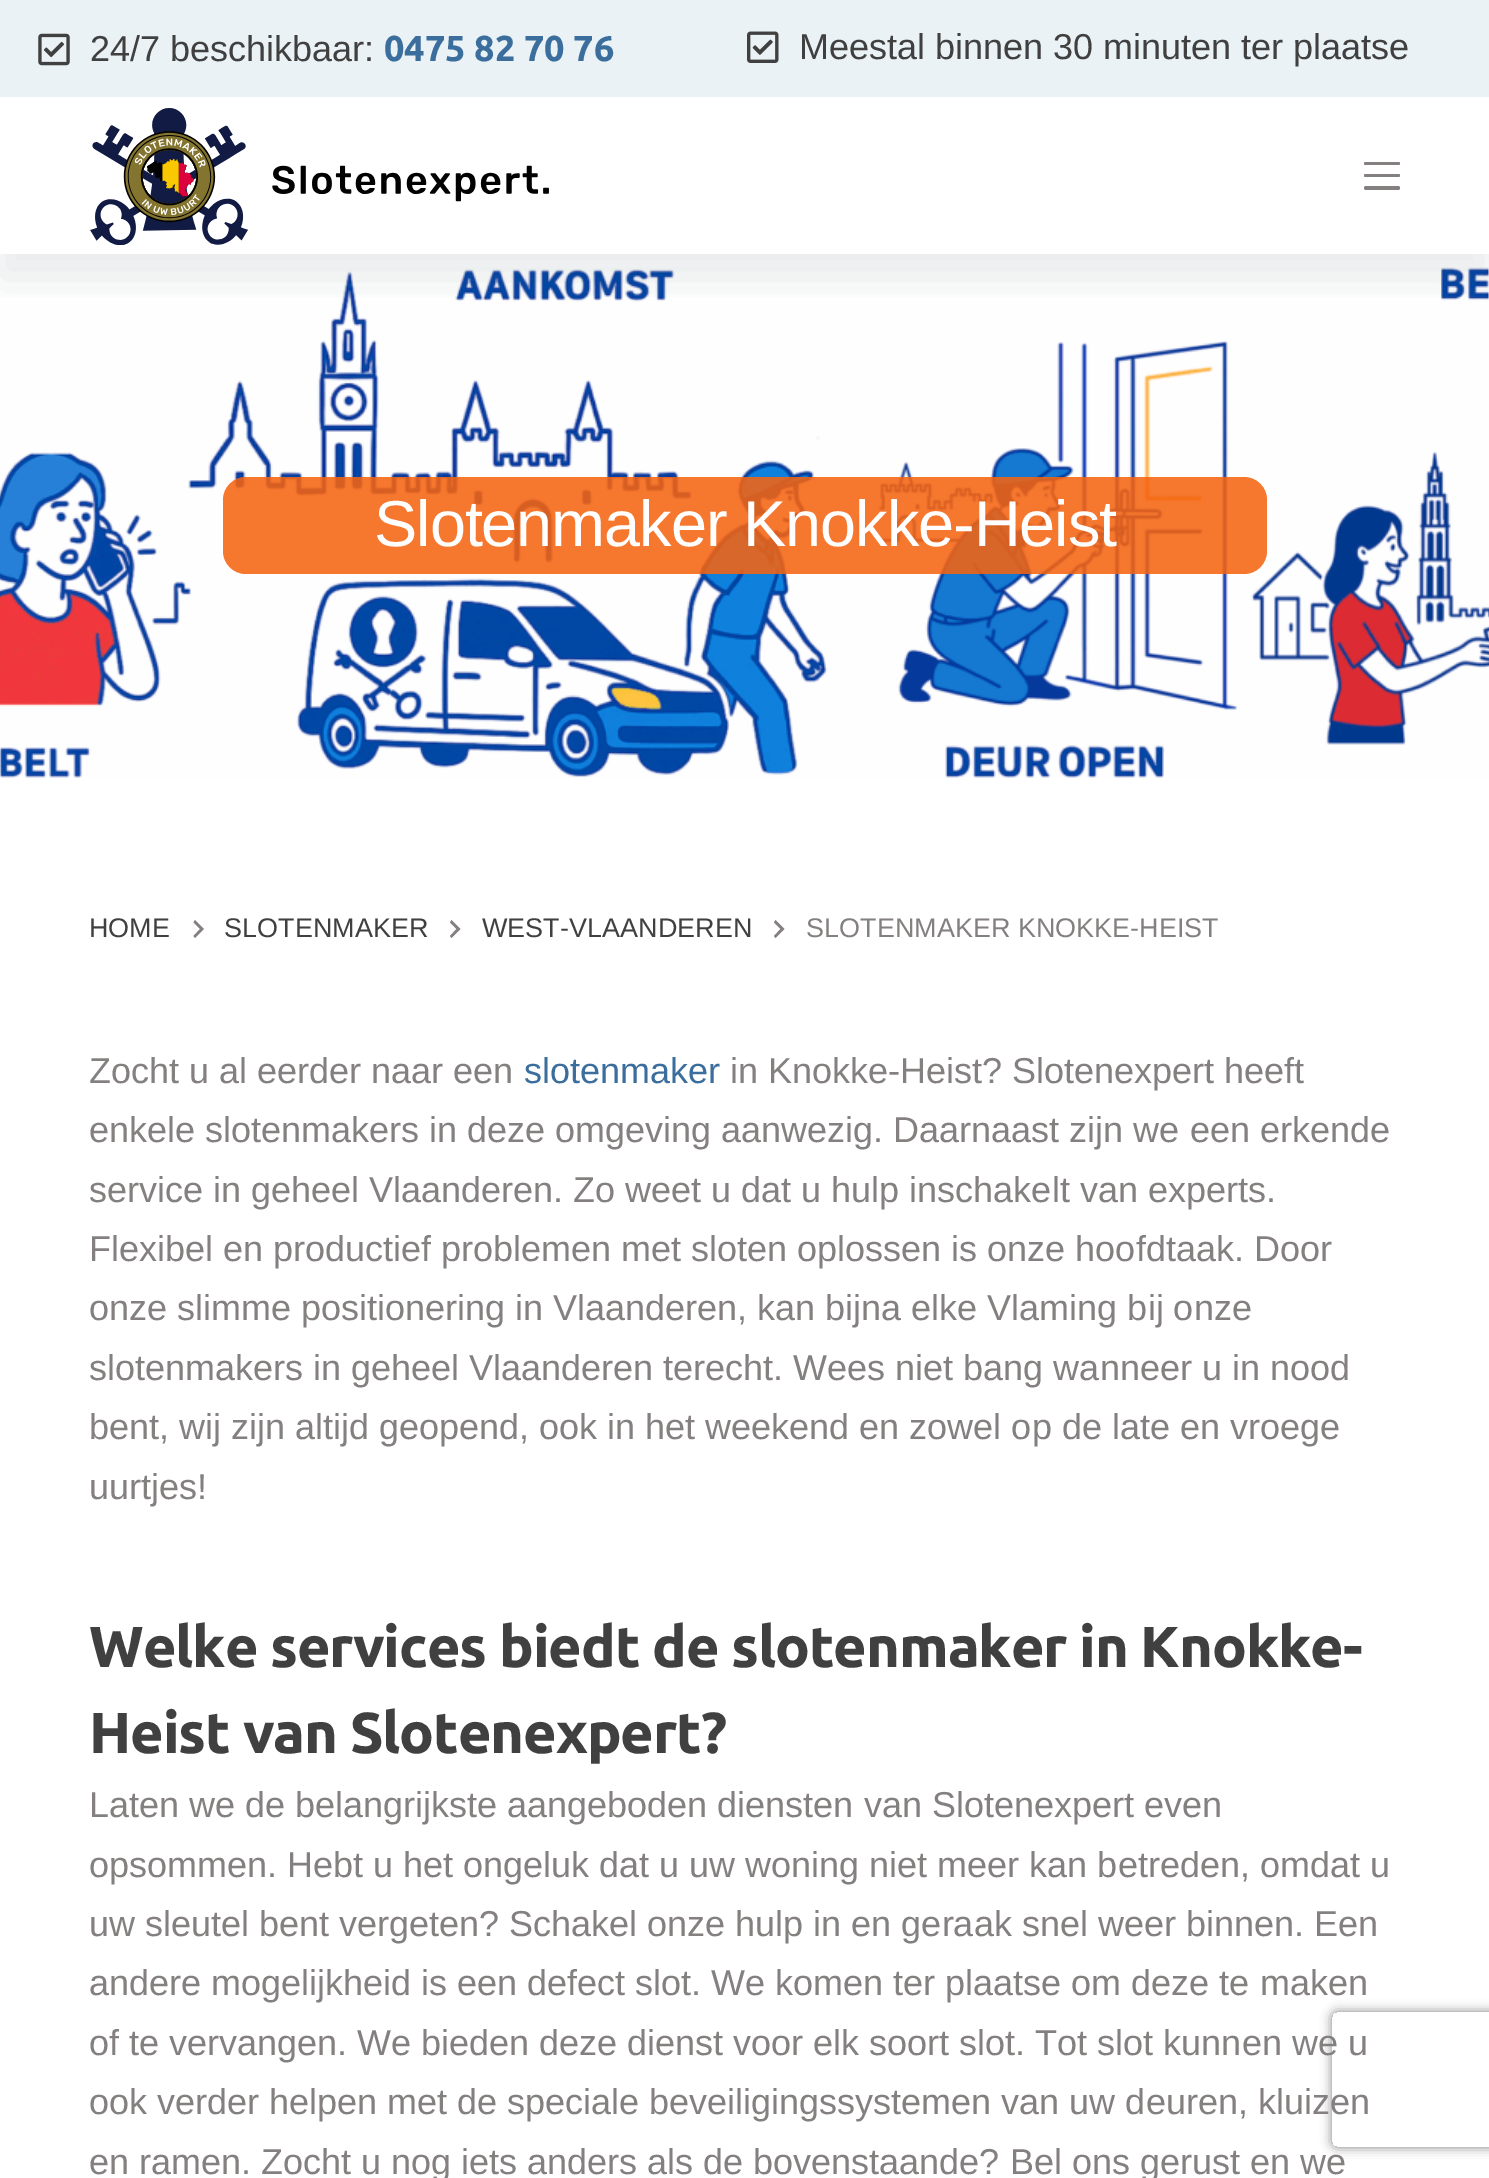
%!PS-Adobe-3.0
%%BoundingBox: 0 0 1489 2178
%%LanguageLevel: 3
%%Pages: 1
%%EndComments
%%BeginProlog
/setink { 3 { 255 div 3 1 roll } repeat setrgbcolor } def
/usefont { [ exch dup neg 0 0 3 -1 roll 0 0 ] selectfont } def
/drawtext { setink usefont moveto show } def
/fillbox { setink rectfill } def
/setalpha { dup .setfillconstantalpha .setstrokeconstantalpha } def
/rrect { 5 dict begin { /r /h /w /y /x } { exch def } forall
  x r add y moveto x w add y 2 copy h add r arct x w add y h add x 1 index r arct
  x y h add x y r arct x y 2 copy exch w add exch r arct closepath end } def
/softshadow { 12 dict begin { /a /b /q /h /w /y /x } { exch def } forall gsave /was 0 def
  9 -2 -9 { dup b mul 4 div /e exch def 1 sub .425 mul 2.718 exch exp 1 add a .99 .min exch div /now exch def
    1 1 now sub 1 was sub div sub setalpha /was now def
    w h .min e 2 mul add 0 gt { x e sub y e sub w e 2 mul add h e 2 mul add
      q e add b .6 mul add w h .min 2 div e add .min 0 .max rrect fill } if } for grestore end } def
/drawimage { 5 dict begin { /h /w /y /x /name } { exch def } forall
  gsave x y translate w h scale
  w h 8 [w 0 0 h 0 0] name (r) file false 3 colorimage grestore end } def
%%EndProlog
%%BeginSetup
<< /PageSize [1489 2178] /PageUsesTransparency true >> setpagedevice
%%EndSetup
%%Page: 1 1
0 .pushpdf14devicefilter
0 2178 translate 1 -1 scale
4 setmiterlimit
0 0 1489 2178 255 255 255 fillbox
0 0 1489 97 234 242 245 fillbox
(assets/img1.rgb) 38 33 32 33 drawimage
(24/7 beschikbaar:) 90 61 /LiberationSans-Regular 36 64 64 64 drawtext
(0475 82 70 76) 384 61 /Ubuntu-Bold 36 60 110 157 drawtext
(assets/img2.rgb) 747 31 32 32 drawimage
(Meestal binnen 30 minuten ter plaatse) 799 59 /LiberationSans-Regular 36 64 64 64 drawtext
(assets/img4.rgb) 0 267 1489 511 drawimage
gsave
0 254 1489 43 rectclip
43 61 80 setink
0 119 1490 158 0 22.5 0.11 softshadow
grestore
(assets/img3.rgb) 90 108 459 137 drawimage
132 128 128 setink
1364 162 36 3 1.5 rrect fill
1364 174 36 3 1.5 rrect fill
1364 186 36 4 2 rrect fill
0.87 setalpha
245 99 15 setink
223 477 1044 97 23 rrect fill
/LiberationSans-Regular 64.9 usefont
1 setalpha
255 255 255 setink
374 546 moveto -1.1 0 (Slotenmaker Knokke-Heist) ashow
(HOME) 89 937 /LiberationSans-Regular 27 64 64 64 drawtext
132 128 128 setink
193.5 936 moveto 200 929 lineto 193.5 922.5 lineto 195 920 lineto 204 929 lineto 195 938 lineto closepath fill
(SLOTENMAKER) 224 937 /LiberationSans-Regular 27 64 64 64 drawtext
132 128 128 setink
450 936 moveto 456.5 929 lineto 450 922.5 lineto 451.5 920 lineto 460.5 929 lineto 451.5 938 lineto closepath fill
(WEST-VLAANDEREN) 482 937 /LiberationSans-Regular 27 64 64 64 drawtext
132 128 128 setink
774 936 moveto 780.5 929 lineto 774 922.5 lineto 775.5 920 lineto 784.5 929 lineto 775.5 938 lineto closepath fill
(SLOTENMAKER KNOKKE-HEIST) 806 937 /LiberationSans-Regular 27 132 128 128 drawtext
(Zocht u al eerder naar een) 89 1083 /LiberationSans-Regular 36 132 128 128 drawtext
(slotenmaker) 524 1083 /LiberationSans-Regular 36 60 110 157 drawtext
(in Knokke-Heist? Slotenexpert heeft) 730 1083 /LiberationSans-Regular 36 132 128 128 drawtext
(enkele slotenmakers in deze omgeving aanwezig. Daarnaast zijn we een erkende) 89 1142 /LiberationSans-Regular 36 132 128 128 drawtext
(service in geheel Vlaanderen. Zo weet u dat u hulp inschakelt van experts.) 89 1202 /LiberationSans-Regular 36 132 128 128 drawtext
(Flexibel en productief problemen met sloten oplossen is onze hoofdtaak. Door) 89 1261 /LiberationSans-Regular 36 132 128 128 drawtext
(onze slimme positionering in Vlaanderen, kan bijna elke Vlaming bij onze) 89 1320 /LiberationSans-Regular 36 132 128 128 drawtext
(slotenmakers in geheel Vlaanderen terecht. Wees niet bang wanneer u in nood) 89 1380 /LiberationSans-Regular 36 132 128 128 drawtext
(bent, wij zijn altijd geopend, ook in het weekend en zowel op de late en vroege) 89 1439 /LiberationSans-Regular 36 132 128 128 drawtext
(uurtjes!) 89 1499 /LiberationSans-Regular 36 132 128 128 drawtext
/Ubuntu-Bold 57.7 usefont
64 64 64 setink
89 1667 moveto -1.1 0 (Welke services biedt de slotenmaker in Knokke-) ashow
89 1753 moveto -1.1 0 (Heist van Slotenexpert?) ashow
(Laten we de belangrijkste aangeboden diensten van Slotenexpert even) 89 1817 /LiberationSans-Regular 36 132 128 128 drawtext
(opsommen. Hebt u het ongeluk dat u uw woning niet meer kan betreden, omdat u) 89 1877 /LiberationSans-Regular 36 132 128 128 drawtext
(uw sleutel bent vergeten? Schakel onze hulp in en geraak snel weer binnen. Een) 89 1936 /LiberationSans-Regular 36 132 128 128 drawtext
(andere mogelijkheid is een defect slot. We komen ter plaatse om deze te maken) 89 1995 /LiberationSans-Regular 36 132 128 128 drawtext
(of te vervangen. We bieden deze dienst voor elk soort slot. Tot slot kunnen we u) 89 2055 /LiberationSans-Regular 36 132 128 128 drawtext
(ook verder helpen met de speciale beveiligingssystemen van uw deuren, kluizen) 89 2114 /LiberationSans-Regular 36 132 128 128 drawtext
(en ramen. Zocht u nog iets anders als de bovenstaande? Bel ons gerust en we) 89 2174 /LiberationSans-Regular 36 132 128 128 drawtext
gsave
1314 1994 moveto 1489 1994 lineto 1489 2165 lineto 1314 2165 lineto closepath 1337 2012 moveto 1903 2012 lineto 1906 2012 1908 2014 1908 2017 curveto 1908 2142 lineto 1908 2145 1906 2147 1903 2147 curveto 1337 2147 lineto 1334 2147 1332 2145 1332 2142 curveto 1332 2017 lineto 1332 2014 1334 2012 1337 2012 curveto closepath eoclip newpath
128 128 128 setink
1332 2012 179 135 5 5.5 1 softshadow
grestore
.poppdf14devicefilter showpage
%%EOF
